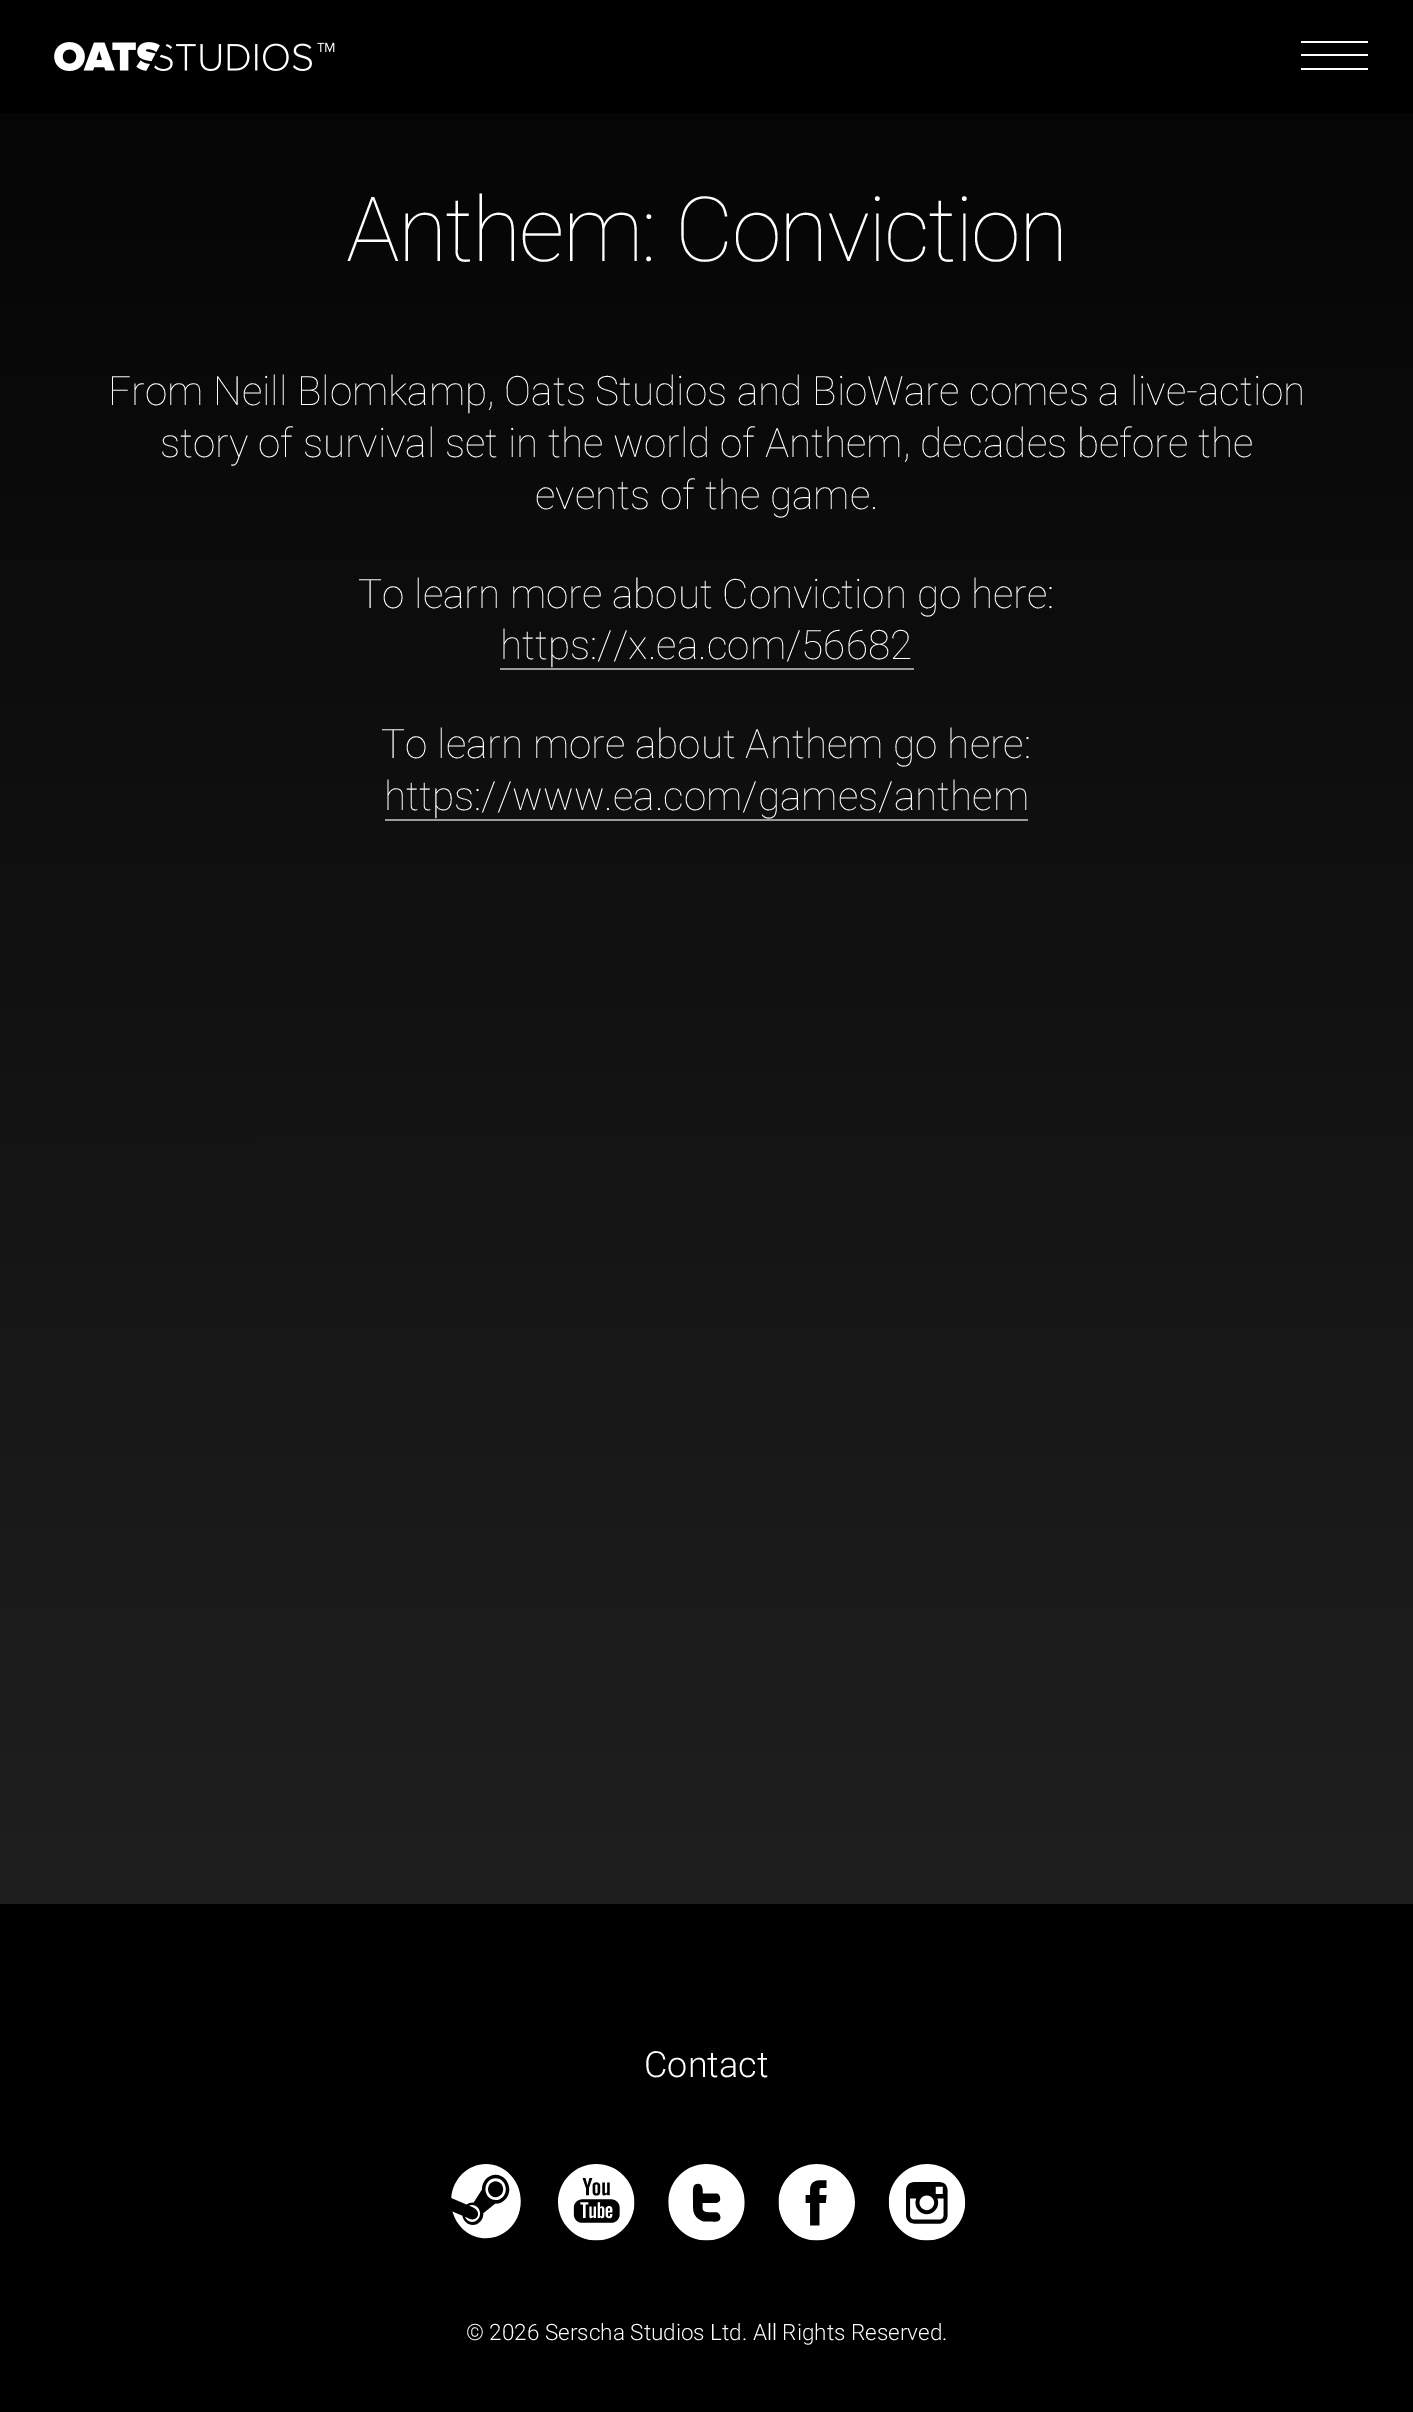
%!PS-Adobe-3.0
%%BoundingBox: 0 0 1413 2412
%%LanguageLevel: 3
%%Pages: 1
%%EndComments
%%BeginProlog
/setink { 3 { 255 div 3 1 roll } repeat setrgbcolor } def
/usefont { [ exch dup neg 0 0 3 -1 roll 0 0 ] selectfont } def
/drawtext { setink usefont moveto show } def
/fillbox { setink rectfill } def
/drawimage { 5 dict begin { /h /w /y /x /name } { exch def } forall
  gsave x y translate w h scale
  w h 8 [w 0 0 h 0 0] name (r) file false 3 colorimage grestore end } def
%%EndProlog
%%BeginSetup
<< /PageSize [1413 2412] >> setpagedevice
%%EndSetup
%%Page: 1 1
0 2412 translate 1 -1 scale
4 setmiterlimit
0 0 1413 2412 0 0 0 fillbox
(assets/img1.rgb) 54 42 281 29 drawimage
1301 41 67 2 255 255 255 fillbox
1301 54 67 2 255 255 255 fillbox
1301 68 67 2 255 255 255 fillbox
gsave 0 113 moveto 1413 113 lineto 1413 1904 lineto 0 1904 lineto closepath clip newpath
<< /ShadingType 2 /ColorSpace /DeviceRGB /Coords [706 -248 707 1904] /Extend [true true] /Function << /FunctionType 2 /Domain [0 1] /C0 [0 0 0] /C1 [0.122 0.122 0.122] /N 1 >> >> shfill grestore
/Roboto-Thin 90 usefont
346 261 moveto -1.9 0 (Anthem: Conviction) ashow
(From Neill Blomkamp, Oats Studios and BioWare comes a live-action) 108 405 /Roboto-Thin 40.5 255 255 255 drawtext
(story of survival set in the world of Anthem, decades before the) 160 457 /Roboto-Thin 40.5 255 255 255 drawtext
(events of the game.) 535 509 /Roboto-Thin 40.5 255 255 255 drawtext
(To learn more about Conviction go here:) 358 608 /Roboto-Thin 40.5 255 255 255 drawtext
(https://x.ea.com/56682) 500 659 /Roboto-Thin 40.5 255 255 255 drawtext
500 668 414 2 155 155 155 fillbox
(To learn more about Anthem go here:) 381 758 /Roboto-Thin 40.5 255 255 255 drawtext
(https://www.ea.com/games/anthem) 384 810 /Roboto-Thin 40.5 255 255 255 drawtext
385 819 643 2 155 155 155 fillbox
(Contact) 644 2077 /Roboto-Light 36 255 255 255 drawtext
(assets/img2.rgb) 451 2164 70 75 drawimage
(assets/img3.rgb) 558 2164 77 77 drawimage
(assets/img4.rgb) 668 2164 77 77 drawimage
(assets/img5.rgb) 778 2164 77 77 drawimage
(assets/img6.rgb) 888 2164 78 77 drawimage
(© 2026 Serscha Studios Ltd. All Rights Reserved.) 466 2340 /Roboto-Light 22.5 255 255 255 drawtext
showpage
%%EOF
